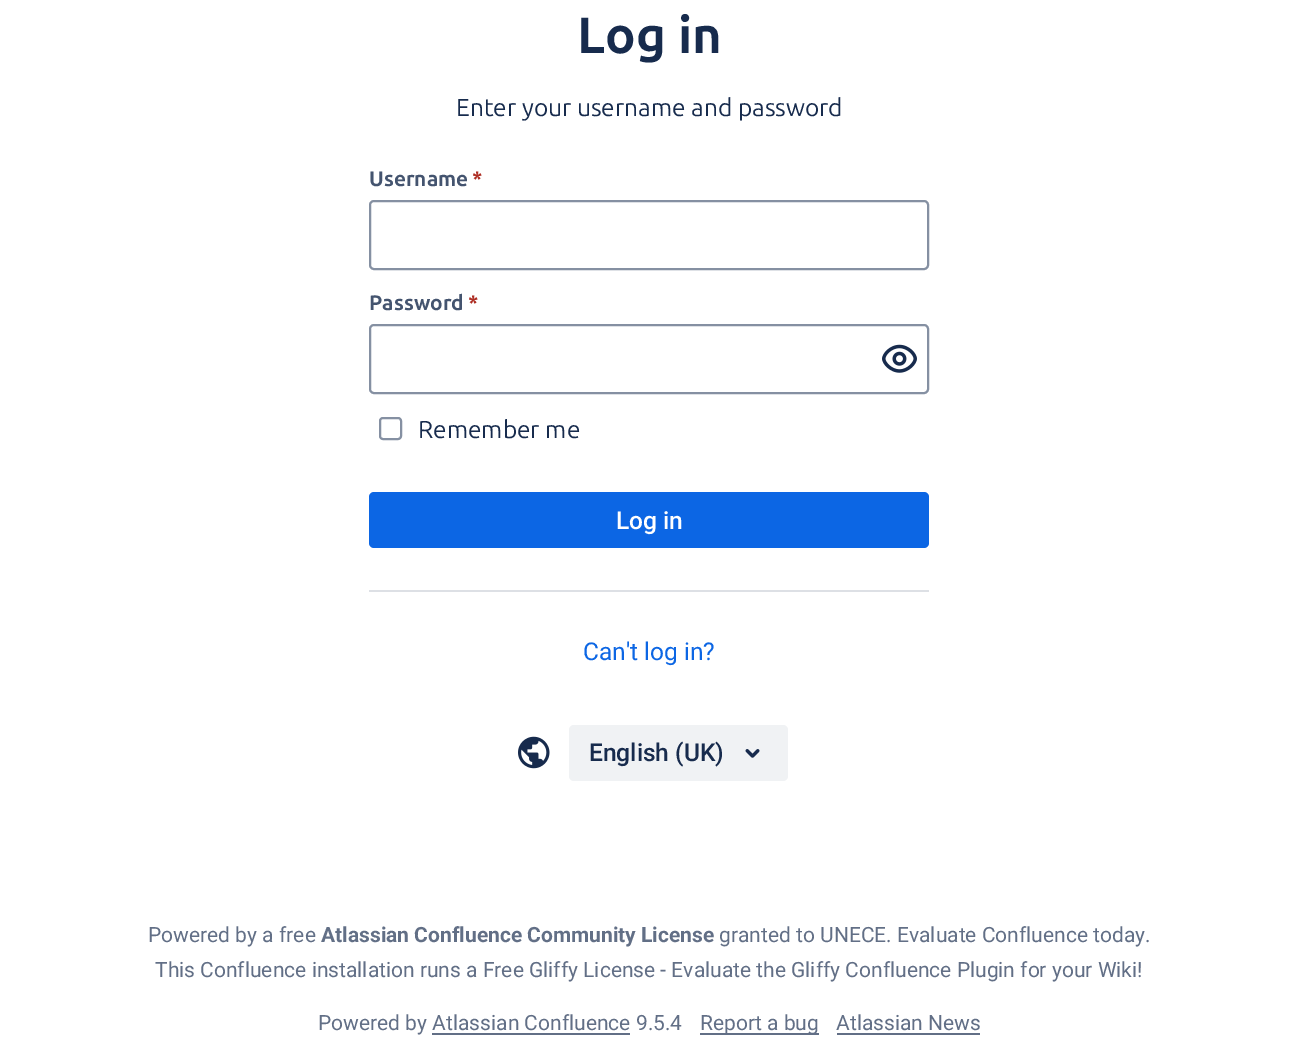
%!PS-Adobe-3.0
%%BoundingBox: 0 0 1298 1051
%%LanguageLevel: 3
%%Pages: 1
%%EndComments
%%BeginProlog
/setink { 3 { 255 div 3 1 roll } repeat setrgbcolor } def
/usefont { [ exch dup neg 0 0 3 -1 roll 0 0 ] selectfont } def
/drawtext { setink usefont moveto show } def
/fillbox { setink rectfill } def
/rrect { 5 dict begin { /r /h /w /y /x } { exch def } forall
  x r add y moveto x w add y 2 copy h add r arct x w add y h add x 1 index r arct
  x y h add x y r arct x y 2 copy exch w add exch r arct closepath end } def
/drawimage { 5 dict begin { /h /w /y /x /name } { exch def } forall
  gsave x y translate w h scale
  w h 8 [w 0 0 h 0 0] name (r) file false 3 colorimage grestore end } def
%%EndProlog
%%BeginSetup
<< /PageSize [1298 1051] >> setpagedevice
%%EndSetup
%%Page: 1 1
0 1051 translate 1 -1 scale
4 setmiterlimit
0 0 1298 1051 255 255 255 fillbox
(Log in) 577 53 /Ubuntu-Bold 51 23 43 77 drawtext
(Enter your username and password) 456 116 /Ubuntu-Regular 24.5 23 43 77 drawtext
(Username) 369 186 /Ubuntu-Bold 21 68 84 111 drawtext
(*) 472 186 /Ubuntu-Bold 21 174 46 36 drawtext
133 144 162 setink
2 setlinewidth
370 201 558 68 4 rrect stroke
(Password) 369 310 /Ubuntu-Bold 21 68 84 111 drawtext
(*) 468 310 /Ubuntu-Bold 21 174 46 36 drawtext
133 144 162 setink
370 325 558 68 4 rrect stroke
(assets/img1.rgb) 882 344 35 29 drawimage
380 418 21 21 3 rrect stroke
(Remember me) 418 438 /Ubuntu-Regular 24.5 23 43 77 drawtext
12 102 228 setink
369 492 560 56 5 rrect fill
(Log in) 616 529 /Roboto-Medium 24.5 255 255 255 drawtext
369 590 560 2 221 224 229 fillbox
(Can't log in?) 583 660 /Roboto-Regular 24.5 12 102 228 drawtext
(assets/img2.rgb) 518 736 32 33 drawimage
240 242 244 setink
569 725 219 56 5 rrect fill
(English \(UK\)) 589 761 /Roboto-Medium 24.5 23 43 77 drawtext
(assets/img3.rgb) 745 749 15 9 drawimage
(Powered by a free) 148 942 /Roboto-Regular 21 98 111 134 drawtext
(Atlassian Confluence Community License) 321 942 /Roboto-Bold 21 98 111 134 drawtext
(granted to UNECE. Evaluate Confluence today.) 719 942 /Roboto-Regular 21 98 111 134 drawtext
(This Confluence installation runs a Free Gliffy License - Evaluate the Gliffy Confluence Plugin for your Wiki!) 155 977 /Roboto-Regular 21 98 111 134 drawtext
(Powered by Atlassian Confluence 9.5.4) 318 1030 /Roboto-Regular 21 98 111 134 drawtext
432 1033 198 2 98 111 134 fillbox
700 1033 119 2 98 111 134 fillbox
(Report a bug) 700 1030 /Roboto-Regular 21 98 111 134 drawtext
(Atlassian News) 836 1030 /Roboto-Regular 21 98 111 134 drawtext
837 1033 143 2 98 111 134 fillbox
showpage
%%EOF
